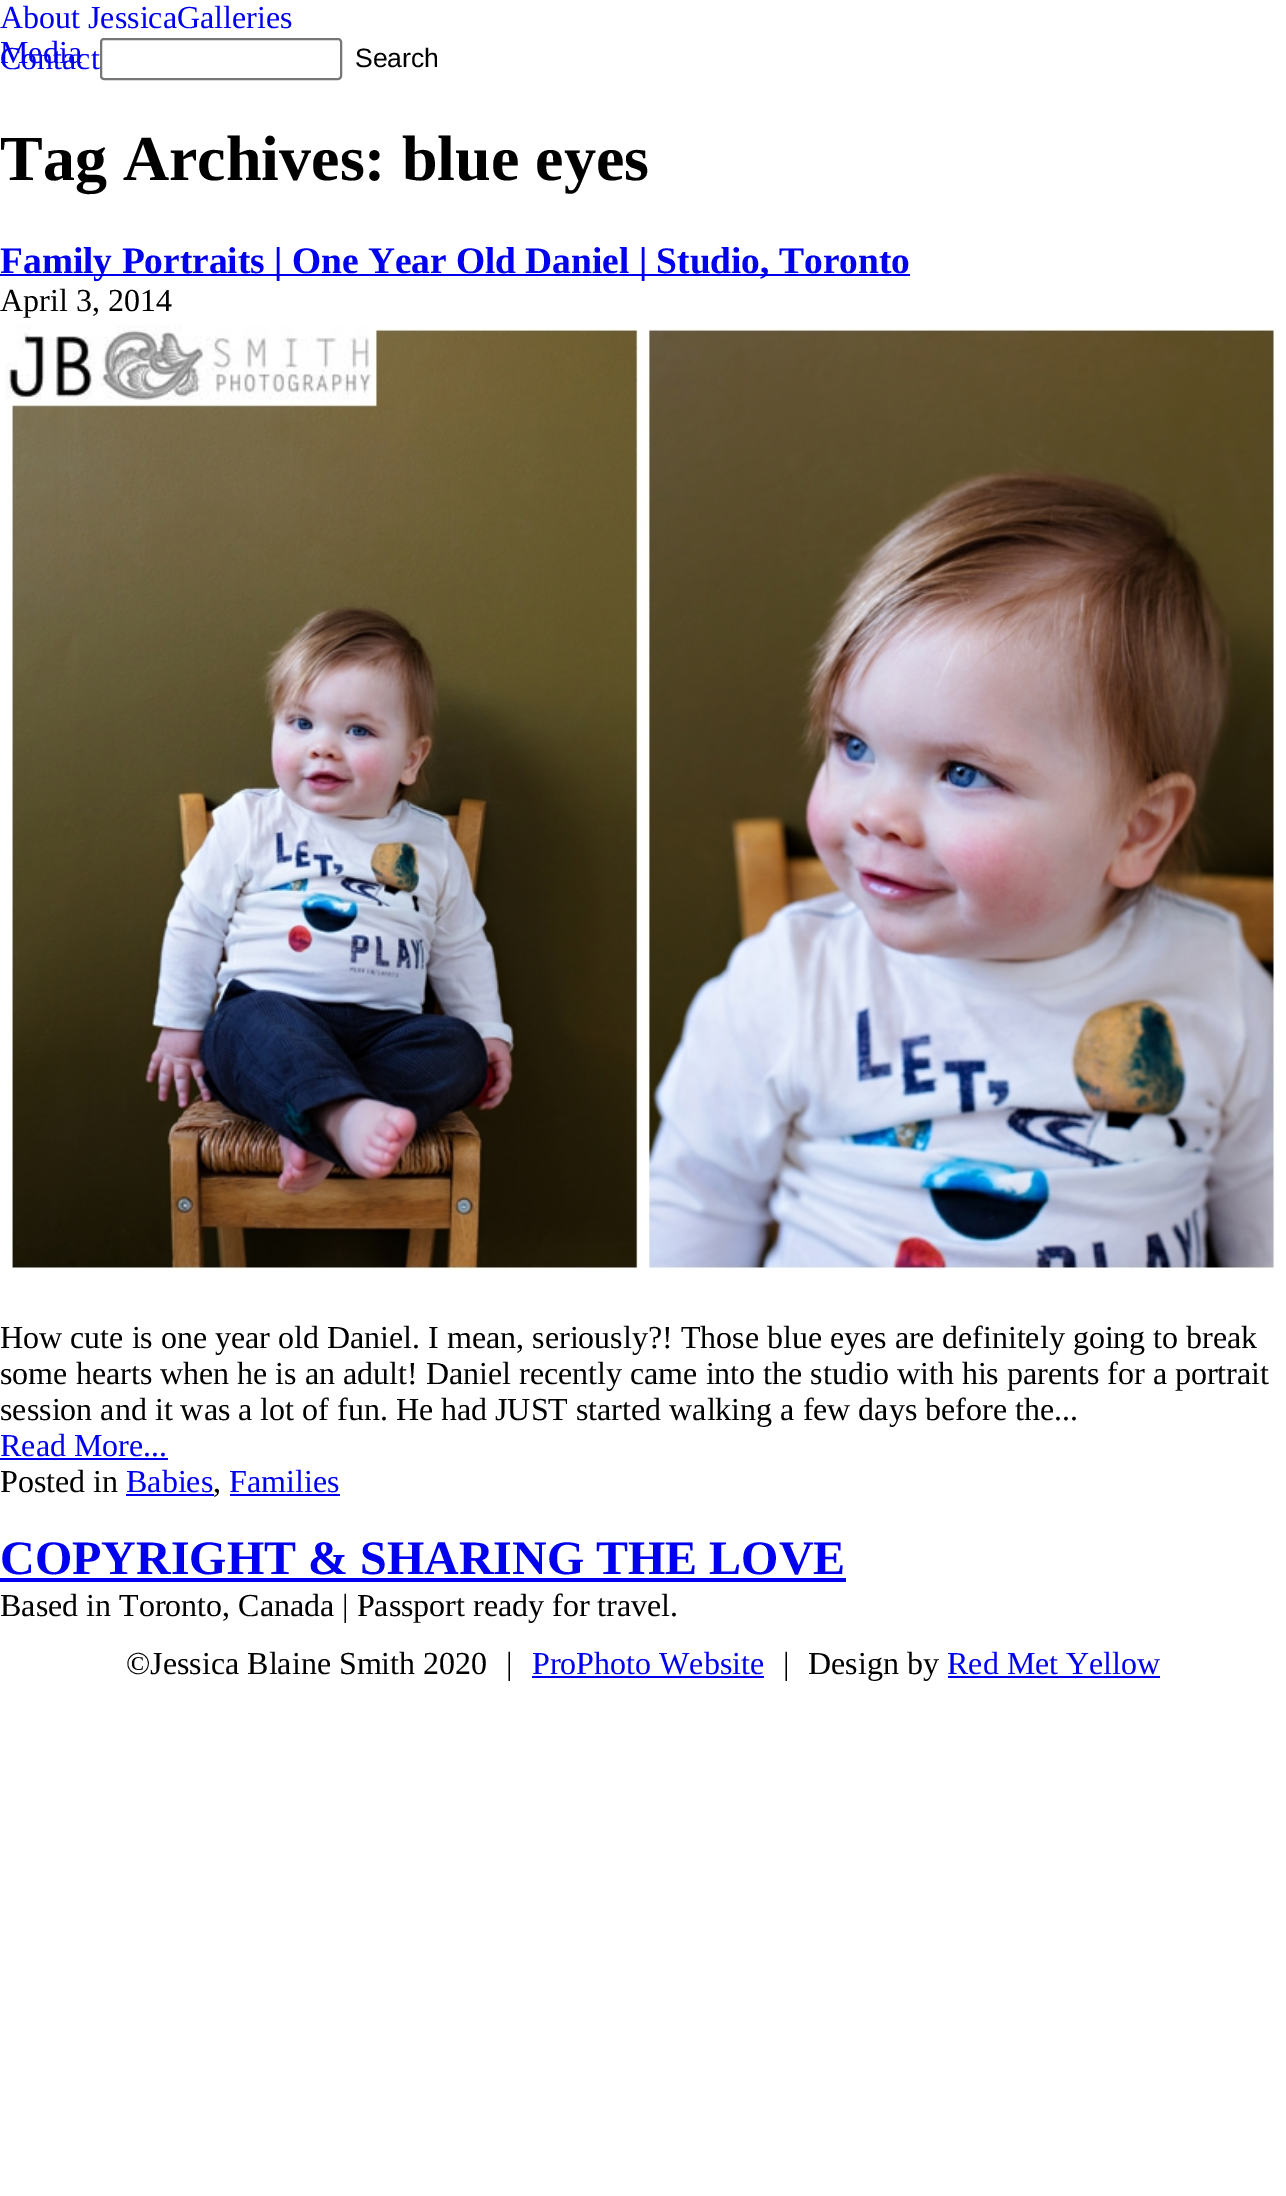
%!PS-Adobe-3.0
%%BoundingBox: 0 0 1286 2196
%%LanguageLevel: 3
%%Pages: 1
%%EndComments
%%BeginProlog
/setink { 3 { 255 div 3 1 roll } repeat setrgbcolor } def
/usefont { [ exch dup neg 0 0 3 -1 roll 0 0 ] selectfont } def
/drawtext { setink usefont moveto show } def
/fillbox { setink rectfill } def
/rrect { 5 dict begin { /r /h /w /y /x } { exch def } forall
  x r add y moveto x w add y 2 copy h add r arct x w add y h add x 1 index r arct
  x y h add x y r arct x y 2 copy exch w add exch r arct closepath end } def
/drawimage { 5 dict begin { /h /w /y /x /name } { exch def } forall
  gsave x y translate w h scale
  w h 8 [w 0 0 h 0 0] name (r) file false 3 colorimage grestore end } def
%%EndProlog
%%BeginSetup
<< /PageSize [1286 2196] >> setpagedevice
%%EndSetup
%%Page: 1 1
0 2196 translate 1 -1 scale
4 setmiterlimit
0 0 1286 2196 255 255 255 fillbox
(About JessicaGalleries) 0 28 /LiberationSerif-Regular 32 0 0 238 drawtext
(Contact) 0 69 /LiberationSerif-Regular 32 0 0 238 drawtext
(Media) 0 63 /LiberationSerif-Regular 32 0 0 238 drawtext
118 118 118 setink
2 setlinewidth
101 39 240 40 3 rrect stroke
(Search) 355 67 /LiberationSans-Regular 26.5 0 0 0 drawtext
(Tag Archives: blue eyes) 0 180 /LiberationSerif-Bold 64 0 0 0 drawtext
0 274 910 2 0 0 238 fillbox
(Family Portraits | One Year Old Daniel | Studio, Toronto) 0 273 /LiberationSerif-Bold 37.4 0 0 238 drawtext
(April 3, 2014) 0 311 /LiberationSerif-Regular 32 0 0 0 drawtext
(assets/img1.rgb) 5 325 1271 945 drawimage
(How cute is one year old Daniel. I mean, seriously?! Those blue eyes are definitely going to break) 0 1348 /LiberationSerif-Regular 32 0 0 0 drawtext
(some hearts when he is an adult! Daniel recently came into the studio with his parents for a portrait) 0 1384 /LiberationSerif-Regular 32 0 0 0 drawtext
(session and it was a lot of fun. He had JUST started walking a few days before the...) 0 1420 /LiberationSerif-Regular 32 0 0 0 drawtext
(Read More...) 0 1456 /LiberationSerif-Regular 32 0 0 238 drawtext
0 1458 168 2 0 0 238 fillbox
(Posted in) 0 1492 /LiberationSerif-Regular 32 0 0 0 drawtext
(Babies) 126 1492 /LiberationSerif-Regular 32 0 0 238 drawtext
(,) 213 1492 /LiberationSerif-Regular 32 0 0 0 drawtext
126 1494 88 2 0 0 238 fillbox
230 1494 110 2 0 0 238 fillbox
(Families) 229 1492 /LiberationSerif-Regular 32 0 0 238 drawtext
(COPYRIGHT & SHARING THE LOVE) 0 1574 /LiberationSerif-Bold 48 0 0 238 drawtext
0 1578 846 4 0 0 238 fillbox
(Based in Toronto, Canada | Passport ready for travel.) 0 1616 /LiberationSerif-Regular 32 0 0 0 drawtext
(©Jessica Blaine Smith 2020) 126 1674 /LiberationSerif-Regular 32 0 0 0 drawtext
(|) 506 1674 /LiberationSerif-Regular 32 0 0 0 drawtext
(ProPhoto Website) 532 1674 /LiberationSerif-Regular 32 0 0 238 drawtext
532 1676 232 2 0 0 238 fillbox
(|) 783 1674 /LiberationSerif-Regular 32 0 0 0 drawtext
(Design by) 808 1674 /LiberationSerif-Regular 32 0 0 0 drawtext
(Red Met Yellow) 947 1674 /LiberationSerif-Regular 32 0 0 238 drawtext
948 1676 212 2 0 0 238 fillbox
showpage
%%EOF
